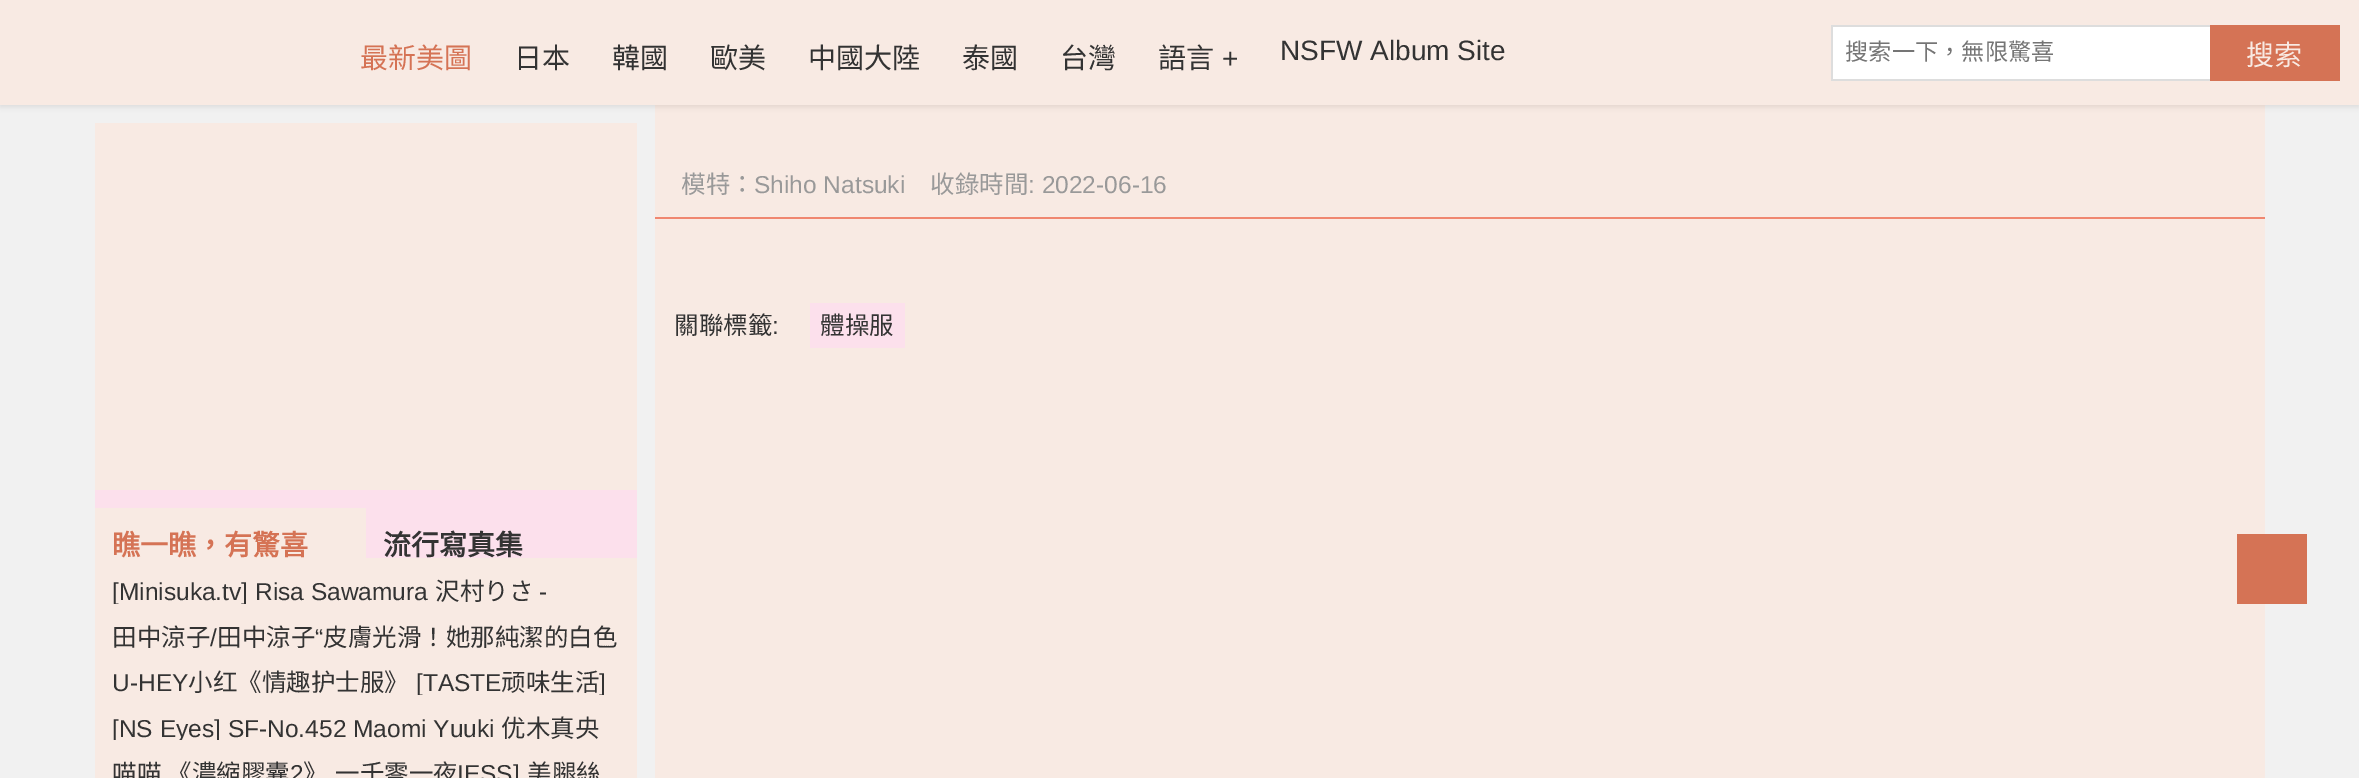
%!PS-Adobe-3.0
%%BoundingBox: 0 0 2359 778
%%LanguageLevel: 3
%%Pages: 1
%%EndComments
%%BeginProlog
/setink { 3 { 255 div 3 1 roll } repeat setrgbcolor } def
/usefont { [ exch dup neg 0 0 3 -1 roll 0 0 ] selectfont } def
/drawtext { setink usefont moveto show } def
/fillbox { setink rectfill } def
/setalpha { dup .setfillconstantalpha .setstrokeconstantalpha } def
/rrect { 5 dict begin { /r /h /w /y /x } { exch def } forall
  x r add y moveto x w add y 2 copy h add r arct x w add y h add x 1 index r arct
  x y h add x y r arct x y 2 copy exch w add exch r arct closepath end } def
/softshadow { 12 dict begin { /a /b /q /h /w /y /x } { exch def } forall gsave /was 0 def
  9 -2 -9 { dup b mul 4 div /e exch def 1 sub .425 mul 2.718 exch exp 1 add a .99 .min exch div /now exch def
    1 1 now sub 1 was sub div sub setalpha /was now def
    w h .min e 2 mul add 0 gt { x e sub y e sub w e 2 mul add h e 2 mul add
      q e add b .6 mul add w h .min 2 div e add .min 0 .max rrect fill } if } for grestore end } def
%%EndProlog
%%BeginSetup
<< /PageSize [2359 778] /PageUsesTransparency true >> setpagedevice
%%EndSetup
%%Page: 1 1
0 .pushpdf14devicefilter
0 778 translate 1 -1 scale
4 setmiterlimit
0 0 2359 778 241 241 241 fillbox
655 105 1610 673 248 234 227 fillbox
26 26 26 setink
0 2 2359 105 0 2.5 0.1 softshadow
0 0 2359 105 248 234 227 fillbox
(最新美圖) 360 68 /NotoSansCJKTC-Regular 28 213 115 85 drawtext
(日本) 514 68 /NotoSansCJKTC-Regular 28 51 51 51 drawtext
(韓國) 612 68 /NotoSansCJKTC-Regular 28 51 51 51 drawtext
(歐美) 710 68 /NotoSansCJKTC-Regular 28 51 51 51 drawtext
(中國大陸) 808 68 /NotoSansCJKTC-Regular 28 51 51 51 drawtext
(泰國) 962 68 /NotoSansCJKTC-Regular 28 51 51 51 drawtext
(台灣) 1060 68 /NotoSansCJKTC-Regular 28 51 51 51 drawtext
(語言) 1158 68 /NotoSansCJKTC-Regular 28 51 51 51 drawtext
(+) 1222 68 /LiberationSans-Regular 28 51 51 51 drawtext
(NSFW Album Site) 1280 60 /LiberationSans-Regular 28 51 51 51 drawtext
1833 27 377 52 255 255 255 fillbox
1831 25 379 2 221 221 221 fillbox
1831 79 379 2 221 221 221 fillbox
1831 25 2 56 221 221 221 fillbox
(搜索一下，無限驚喜) 1845 60 /NotoSansCJKTC-Regular 23.25 117 117 117 drawtext
2210 25 130 56 213 115 85 fillbox
(搜索) 2246 65 /NotoSansCJKTC-Regular 28 248 234 227 drawtext
655 217 1610 2 240 135 112 fillbox
(模特：) 681 193 /NotoSansCJKTC-Regular 24.5 153 153 153 drawtext
(Shiho Natsuki) 754 193 /LiberationSans-Regular 24.5 153 153 153 drawtext
(收錄時間) 930 193 /NotoSansCJKTC-Regular 24.5 153 153 153 drawtext
(: 2022-06-16) 1028 193 /LiberationSans-Regular 24.5 153 153 153 drawtext
(關聯標籤) 674 334 /NotoSansCJKTC-Regular 24.5 51 51 51 drawtext
(:) 772 334 /LiberationSans-Regular 24.5 51 51 51 drawtext
810 303 95 45 252 224 236 fillbox
(體操服) 820 334 /NotoSansCJKTC-Regular 24.5 51 51 51 drawtext
95 490 542 18 252 224 236 fillbox
95 123 542 367 248 234 227 fillbox
95 508 542 270 248 234 227 fillbox
(瞧一瞧，有驚喜) 112 555 /NotoSansCJKTC-Bold 28 213 115 85 drawtext
366 508 271 50 252 224 236 fillbox
(流行寫真集) 383 555 /NotoSansCJKTC-Bold 28 51 51 51 drawtext
gsave
112 576 508 28 rectclip
([Minisuka.tv] Risa Sawamura) 112 600 /LiberationSans-Regular 24.5 51 51 51 drawtext
grestore
(沢村りさ) 435 600 /NotoSansCJKTC-Regular 24.5 51 51 51 drawtext
(-) 539 600 /LiberationSans-Regular 24.5 51 51 51 drawtext
(田中涼子) 112 646 /NotoSansCJKTC-Regular 24.5 51 51 51 drawtext
(/) 210 646 /LiberationSans-Regular 24.5 51 51 51 drawtext
(田中涼子) 217 646 /NotoSansCJKTC-Regular 24.5 51 51 51 drawtext
(“) 315 646 /LiberationSans-Regular 24.5 51 51 51 drawtext
(皮膚光滑！她那純潔的白色) 323 646 /NotoSansCJKTC-Regular 24.5 51 51 51 drawtext
(U-HEY) 112 691 /LiberationSans-Regular 24.5 51 51 51 drawtext
(小红《情趣护士服》) 188 691 /NotoSansCJKTC-Regular 24.5 51 51 51 drawtext
gsave
112 667 508 28 rectclip
([TASTE) 416 691 /LiberationSans-Regular 24.5 51 51 51 drawtext
grestore
(顽味生活) 501 691 /NotoSansCJKTC-Regular 24.5 51 51 51 drawtext
gsave
112 667 508 28 rectclip
(]) 599 691 /LiberationSans-Regular 24.5 51 51 51 drawtext
grestore
gsave
112 712 508 28 rectclip
([NS Eyes] SF-No.452 Maomi Yuuki) 112 737 /LiberationSans-Regular 24.5 51 51 51 drawtext
grestore
(优木真央) 501 737 /NotoSansCJKTC-Regular 24.5 51 51 51 drawtext
112 782 moveto 1 0 32 (喵喵 《濃縮膠囊) widthshow
(2) 290 782 /LiberationSans-Regular 24.5 51 51 51 drawtext
(》) 303 782 /NotoSansCJKTC-Regular 24.5 51 51 51 drawtext
(一千零一夜) 335 782 /NotoSansCJKTC-Regular 24.5 51 51 51 drawtext
(IESS]) 457 782 /LiberationSans-Regular 24.5 51 51 51 drawtext
(美腿絲) 527 782 /NotoSansCJKTC-Regular 24.5 51 51 51 drawtext
2237 534 70 70 213 115 85 fillbox
.poppdf14devicefilter showpage
%%EOF
